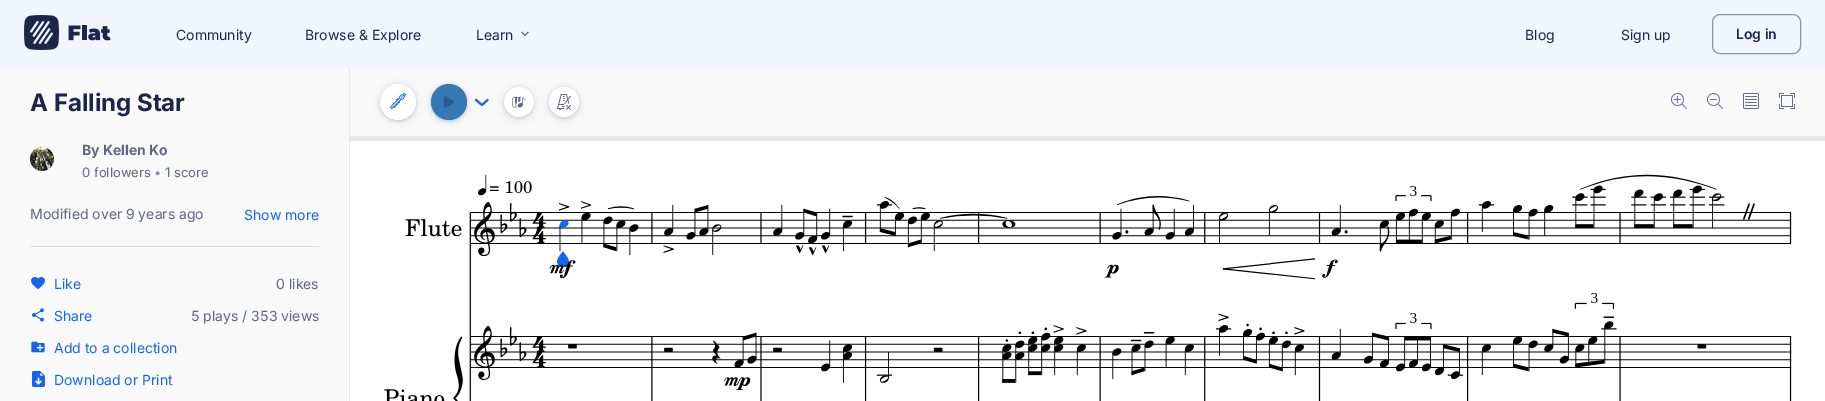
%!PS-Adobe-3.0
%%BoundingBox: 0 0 1825 401
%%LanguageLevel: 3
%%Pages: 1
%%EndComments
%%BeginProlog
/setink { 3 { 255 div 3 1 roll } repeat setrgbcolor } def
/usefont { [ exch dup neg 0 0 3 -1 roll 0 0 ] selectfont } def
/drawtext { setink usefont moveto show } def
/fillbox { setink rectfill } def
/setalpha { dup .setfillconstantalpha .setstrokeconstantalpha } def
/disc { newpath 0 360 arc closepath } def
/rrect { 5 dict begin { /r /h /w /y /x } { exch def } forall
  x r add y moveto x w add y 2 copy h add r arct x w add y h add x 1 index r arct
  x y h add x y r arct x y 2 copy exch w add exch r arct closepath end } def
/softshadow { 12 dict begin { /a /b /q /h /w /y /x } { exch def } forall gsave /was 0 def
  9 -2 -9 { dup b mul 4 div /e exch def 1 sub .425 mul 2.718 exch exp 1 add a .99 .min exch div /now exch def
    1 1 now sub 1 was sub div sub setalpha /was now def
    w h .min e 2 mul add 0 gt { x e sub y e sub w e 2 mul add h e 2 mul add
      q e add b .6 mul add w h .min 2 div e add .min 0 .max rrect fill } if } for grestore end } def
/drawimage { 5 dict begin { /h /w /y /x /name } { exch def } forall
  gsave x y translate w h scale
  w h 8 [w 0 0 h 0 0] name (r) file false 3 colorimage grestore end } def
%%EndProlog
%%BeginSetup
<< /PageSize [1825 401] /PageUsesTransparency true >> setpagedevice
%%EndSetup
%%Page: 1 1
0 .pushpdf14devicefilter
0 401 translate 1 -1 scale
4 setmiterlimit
0 0 1825 401 255 255 255 fillbox
0 0 1825 68 241 246 254 fillbox
(assets/img1.rgb) 24 15 87 35 drawimage
(Community) 176 40 /Inter-Regular 14 28 38 74 drawtext
(Browse & Explore) 305 40 /Inter-Regular 14 28 38 74 drawtext
(Learn) 476 40 /Inter-Regular 14 28 38 74 drawtext
(assets/img2.rgb) 521 31 8 6 drawimage
(Blog) 1525 40 /Inter-Regular 14 28 38 74 drawtext
(Sign up) 1621 40 /Inter-Regular 14 28 38 74 drawtext
141 147 165 setink
1712.5 14.5 88 39 7.5 rrect stroke
(Log in) 1736 39 /Inter-SemiBold 14 28 38 74 drawtext
0 68 349 333 249 249 250 fillbox
349 68 1 333 231 232 236 fillbox
(A Falling Star) 30 111 /Inter-Bold 24 28 38 74 drawtext
(assets/img3.rgb) 30 147 24 24 drawimage
(By Kellen Ko) 82 155 /Inter-Bold 14 95 103 129 drawtext
(0 followers) 82 177 /Inter-Regular 13 95 103 129 drawtext
(•) 154 177 /Inter-Regular 13 141 147 165 drawtext
(1 score) 165 177 /Inter-Regular 13 95 103 129 drawtext
(Modified over 9 years ago) 30 219 /Inter-Regular 14 95 103 129 drawtext
(Show more) 244 220 /Inter-Regular 14 21 101 239 drawtext
30 246 289 1 219 222 230 fillbox
(assets/img4.rgb) 31 277 14 12 drawimage
(Like) 54 289 /Inter-Regular 14 21 101 239 drawtext
(0 likes) 276 289 /Inter-Regular 14 95 103 129 drawtext
(assets/img5.rgb) 32 308 12 14 drawimage
(Share) 54 321 /Inter-Regular 14 21 101 239 drawtext
(5 plays / 353 views) 191 321 /Inter-Regular 14 95 103 129 drawtext
(assets/img6.rgb) 31 341 14 12 drawimage
(Add to a collection) 54 353 /Inter-Regular 14 21 101 239 drawtext
(assets/img7.rgb) 32 371 13 16 drawimage
(Download or Print) 54 385 /Inter-Regular 14 21 101 239 drawtext
350 68 1475 68 249 249 250 fillbox
40 48 79 setink
380 85 36 36 18 4 0.1 softshadow
380 85 36 36 18 1.5 0.2 softshadow
255 255 255 setink
398 102 18 disc fill
(assets/img8.rgb) 390 93 16 16 drawimage
40 48 79 setink
431 85 36 36 18 1.5 0.2 softshadow
431 86 36 36 18 4 0.1 softshadow
53 121 180 setink
449 102 18 disc fill
(assets/img9.rgb) 444 96 10 12 drawimage
21 101 239 setink
2 setlinewidth
1 setlinecap
1 setlinejoin
476 100 moveto 482 105 lineto 487.5 100 lineto stroke
40 48 79 setink
504 88 30 30 15 1.5 0.2 softshadow
504 89 30 30 15 4 0.1 softshadow
255 255 255 setink
519 102 15 disc fill
(assets/img10.rgb) 512 96 14 12 drawimage
40 48 79 setink
549 88 30 30 15 1.5 0.2 softshadow
549 89 30 30 15 4 0.1 softshadow
255 255 255 setink
564 102 15 disc fill
(assets/img11.rgb) 557 94 14 16 drawimage
(assets/img12.rgb) 1671 93 16 16 drawimage
(assets/img13.rgb) 1707 93 16 16 drawimage
(assets/img14.rgb) 1743 93 16 16 drawimage
(assets/img15.rgb) 1779 93 16 16 drawimage
350 136 1475 5 231 232 236 fillbox
(assets/img16.rgb) 384 174 1408 227 drawimage
.poppdf14devicefilter showpage
%%EOF
